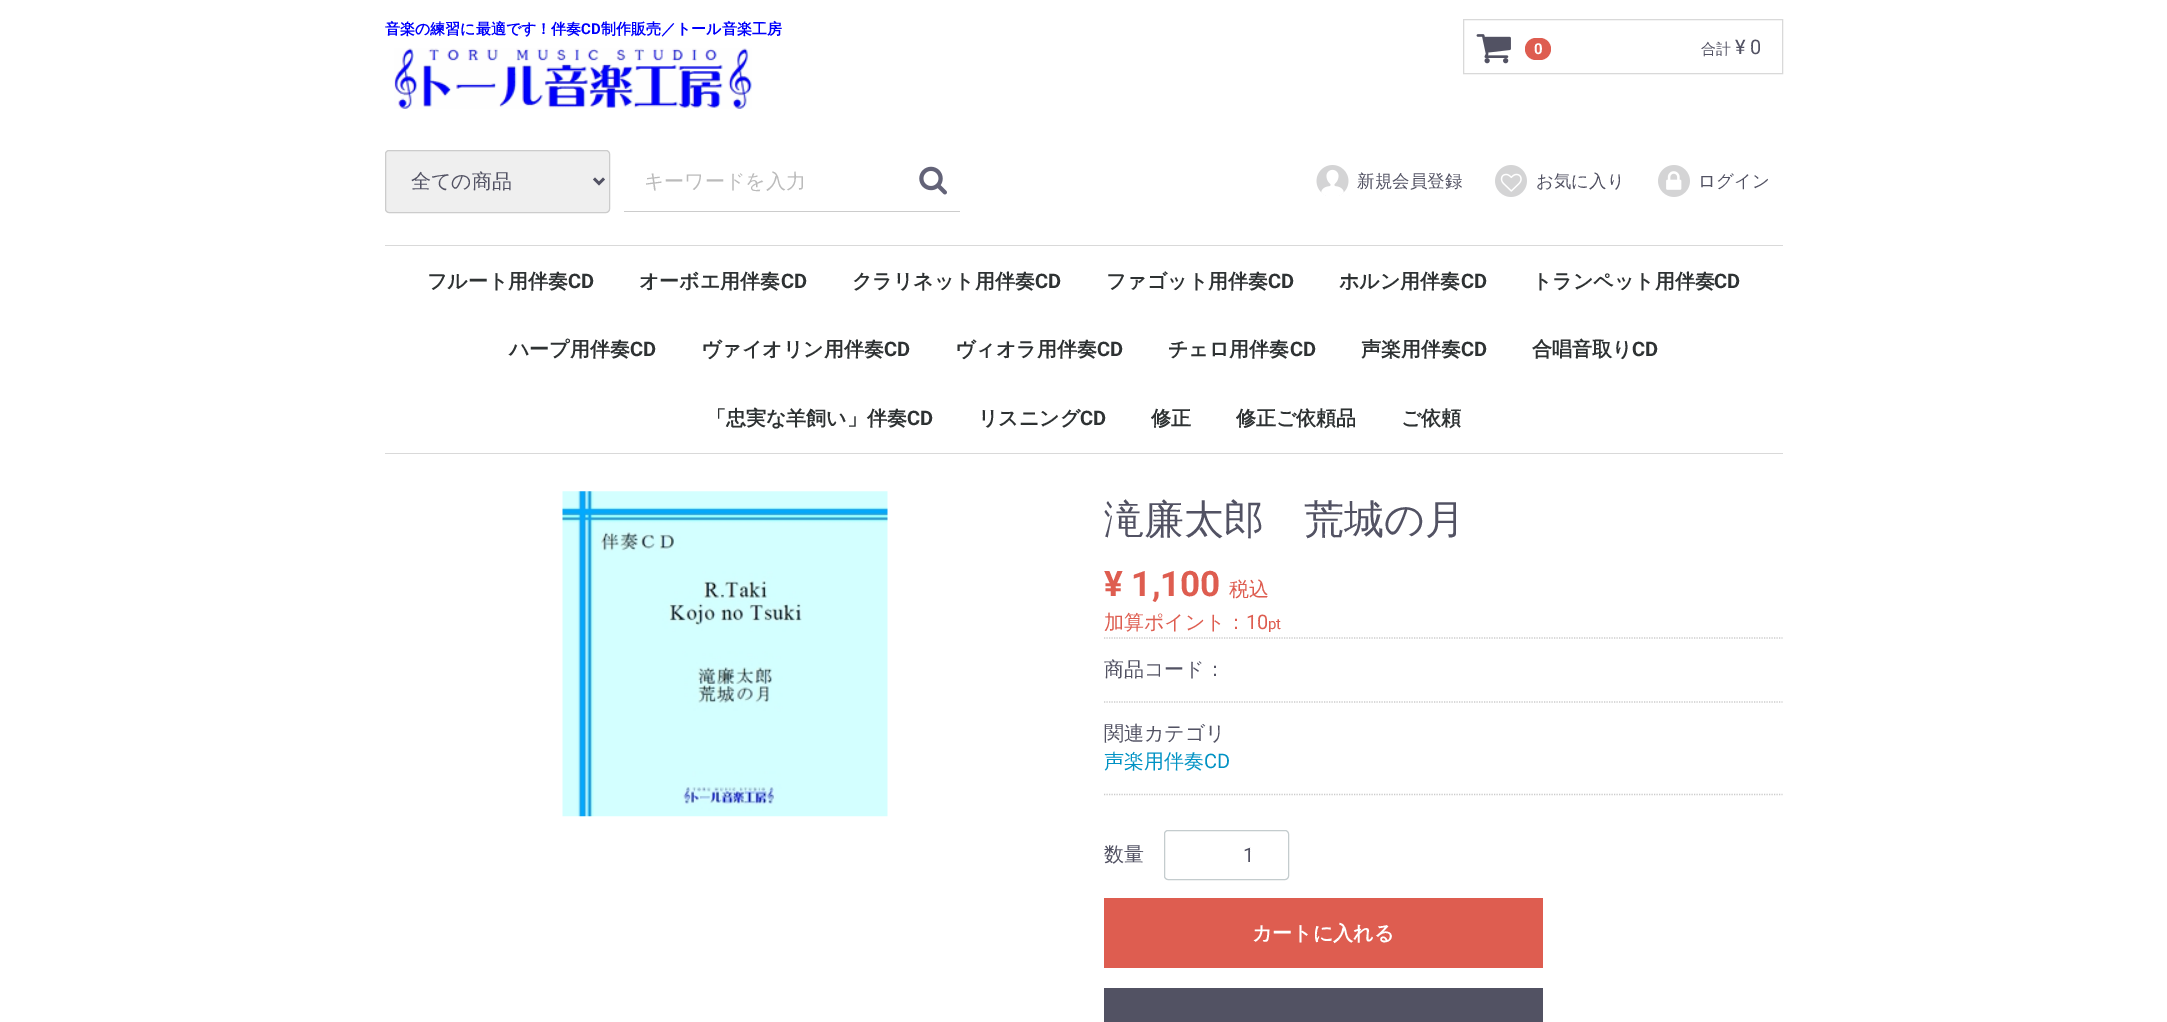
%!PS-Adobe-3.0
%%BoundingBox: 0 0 2167 1022
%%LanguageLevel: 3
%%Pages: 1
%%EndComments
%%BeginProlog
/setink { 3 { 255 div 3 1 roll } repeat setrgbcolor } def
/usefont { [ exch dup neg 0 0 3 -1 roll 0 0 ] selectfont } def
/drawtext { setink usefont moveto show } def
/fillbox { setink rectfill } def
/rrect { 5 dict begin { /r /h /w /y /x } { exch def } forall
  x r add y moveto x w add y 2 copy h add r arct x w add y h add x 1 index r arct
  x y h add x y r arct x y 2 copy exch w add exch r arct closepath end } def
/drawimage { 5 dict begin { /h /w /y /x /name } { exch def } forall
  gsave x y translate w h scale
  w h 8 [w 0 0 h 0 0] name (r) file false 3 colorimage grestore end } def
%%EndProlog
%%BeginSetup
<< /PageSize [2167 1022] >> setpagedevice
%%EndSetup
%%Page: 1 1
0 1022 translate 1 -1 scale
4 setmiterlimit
0 0 2167 1022 255 255 255 fillbox
(音楽の練習に最適です！伴奏) 385 34 /WenQuanYiZenHei-Bold 15 0 0 251 drawtext
(CD) 581 34 /Roboto-Bold 15 0 0 251 drawtext
(制作販売／トール音楽工房) 601 34 /WenQuanYiZenHei-Bold 15 0 0 251 drawtext
(assets/img1.rgb) 394 48 358 61 drawimage
217 217 217 setink
1463.5 19.5 319 54 rectstroke
(assets/img2.rgb) 1476 34 35 30 drawimage
222 93 80 setink
1525 38 26 22 11 rrect fill
(0) 1534 54 /Roboto-Bold 15 255 255 255 drawtext
(合計) 1701 54 /WenQuanYiZenHei-Medium 15 82 82 99 drawtext
(¥ 0) 1735 54 /Roboto-Regular 20 82 82 99 drawtext
239 239 239 setink
385.5 150.5 224 62 3.5 rrect gsave fill grestore
204 204 204 setink
stroke
82 82 99 setink
2.5 setlinewidth
594 178.5 moveto 599 183.5 lineto 604 178.5 lineto stroke
(全ての商品) 411 188 /WenQuanYiZenHei-Medium 20 82 82 99 drawtext
624 211 336 1 204 204 204 fillbox
(キーワードを入力) 644 188 /WenQuanYiZenHei-Medium 20 187 187 187 drawtext
(assets/img3.rgb) 919 166 28 29 drawimage
(assets/img4.rgb) 1316 165 33 31 drawimage
(新規会員登録) 1357 187 /WenQuanYiZenHei-Medium 17.5 82 82 99 drawtext
(assets/img5.rgb) 1495 165 32 32 drawimage
(お気に入り) 1536 187 /WenQuanYiZenHei-Medium 17.5 82 82 99 drawtext
(assets/img6.rgb) 1658 165 32 32 drawimage
(ログイン) 1698 187 /WenQuanYiZenHei-Medium 17.5 82 82 99 drawtext
385 245 1398 1 217 217 217 fillbox
385 453 1398 1 217 217 217 fillbox
(フルート用伴奏) 427 288 /WenQuanYiZenHei-Bold 20 46 50 51 drawtext
(CD) 568 288 /Roboto-Bold 20 46 50 51 drawtext
(オーボエ用伴奏) 639 288 /WenQuanYiZenHei-Bold 20 46 50 51 drawtext
(CD) 781 288 /Roboto-Bold 20 46 50 51 drawtext
(クラリネット用伴奏) 852 288 /WenQuanYiZenHei-Bold 20 46 50 51 drawtext
(CD) 1035 288 /Roboto-Bold 20 46 50 51 drawtext
(ファゴット用伴奏) 1106 288 /WenQuanYiZenHei-Bold 20 46 50 51 drawtext
(CD) 1268 288 /Roboto-Bold 20 46 50 51 drawtext
(ホルン用伴奏) 1339 288 /WenQuanYiZenHei-Bold 20 46 50 51 drawtext
(CD) 1461 288 /Roboto-Bold 20 46 50 51 drawtext
(トランペット用伴奏) 1532 288 /WenQuanYiZenHei-Bold 20 46 50 51 drawtext
(CD) 1714 288 /Roboto-Bold 20 46 50 51 drawtext
(ハープ用伴奏) 509 356 /WenQuanYiZenHei-Bold 20 46 50 51 drawtext
(CD) 630 356 /Roboto-Bold 20 46 50 51 drawtext
(ヴァイオリン用伴奏) 701 356 /WenQuanYiZenHei-Bold 20 46 50 51 drawtext
(CD) 884 356 /Roboto-Bold 20 46 50 51 drawtext
(ヴィオラ用伴奏) 955 356 /WenQuanYiZenHei-Bold 20 46 50 51 drawtext
(CD) 1097 356 /Roboto-Bold 20 46 50 51 drawtext
(チェロ用伴奏) 1168 356 /WenQuanYiZenHei-Bold 20 46 50 51 drawtext
(CD) 1290 356 /Roboto-Bold 20 46 50 51 drawtext
(声楽用伴奏) 1361 356 /WenQuanYiZenHei-Bold 20 46 50 51 drawtext
(CD) 1461 356 /Roboto-Bold 20 46 50 51 drawtext
(合唱音取り) 1532 356 /WenQuanYiZenHei-Bold 20 46 50 51 drawtext
(CD) 1632 356 /Roboto-Bold 20 46 50 51 drawtext
(「忠実な羊飼い」伴奏) 706 425 /WenQuanYiZenHei-Bold 20 46 50 51 drawtext
(CD) 907 425 /Roboto-Bold 20 46 50 51 drawtext
(リスニング) 978 425 /WenQuanYiZenHei-Bold 20 46 50 51 drawtext
(CD) 1080 425 /Roboto-Bold 20 46 50 51 drawtext
(修正) 1151 425 /WenQuanYiZenHei-Bold 20 46 50 51 drawtext
(修正ご依頼品) 1236 425 /WenQuanYiZenHei-Bold 20 46 50 51 drawtext
(ご依頼) 1401 425 /WenQuanYiZenHei-Bold 20 46 50 51 drawtext
(assets/img7.rgb) 562 491 326 326 drawimage
(滝廉太郎　荒城の月) 1104 533 /WenQuanYiZenHei-Medium 40 82 82 99 drawtext
(¥ 1,100) 1104 596 /Roboto-Bold 35 222 93 80 drawtext
(税込) 1229 596 /WenQuanYiZenHei-Medium 20 222 93 80 drawtext
(加算ポイント：) 1104 629 /WenQuanYiZenHei-Medium 20 222 93 80 drawtext
(10) 1246 629 /Roboto-Regular 20 222 93 80 drawtext
(pt) 1268 629 /Roboto-Regular 15 222 93 80 drawtext
204 204 204 setink
1.2 setlinewidth
[1.25 1.25] 0 setdash
1104 638 moveto 1782.5 638 lineto stroke
(商品コード：) 1104 676 /WenQuanYiZenHei-Medium 20 82 82 99 drawtext
204 204 204 setink
1104 702 moveto 1782.5 702 lineto stroke
1104 794.5 moveto 1782.5 794.5 lineto stroke
(関連カテゴリ) 1104 740 /WenQuanYiZenHei-Medium 20 82 82 99 drawtext
(声楽用伴奏) 1104 768 /WenQuanYiZenHei-Medium 20 0 146 196 drawtext
(CD) 1204 768 /Roboto-Regular 20 0 146 196 drawtext
(数量) 1104 861 /WenQuanYiZenHei-Medium 20 82 82 99 drawtext
196 204 206 setink
1 setlinewidth
[] 0 setdash
1164.5 830.5 124 49 3.5 rrect stroke
(1) 1243 862 /Roboto-Regular 20 82 82 99 drawtext
1104 898 439 70 222 93 80 fillbox
(カートに入れる) 1252 940 /WenQuanYiZenHei-Bold 20 255 255 255 drawtext
1104 988 439 34 82 82 99 fillbox
showpage
%%EOF
